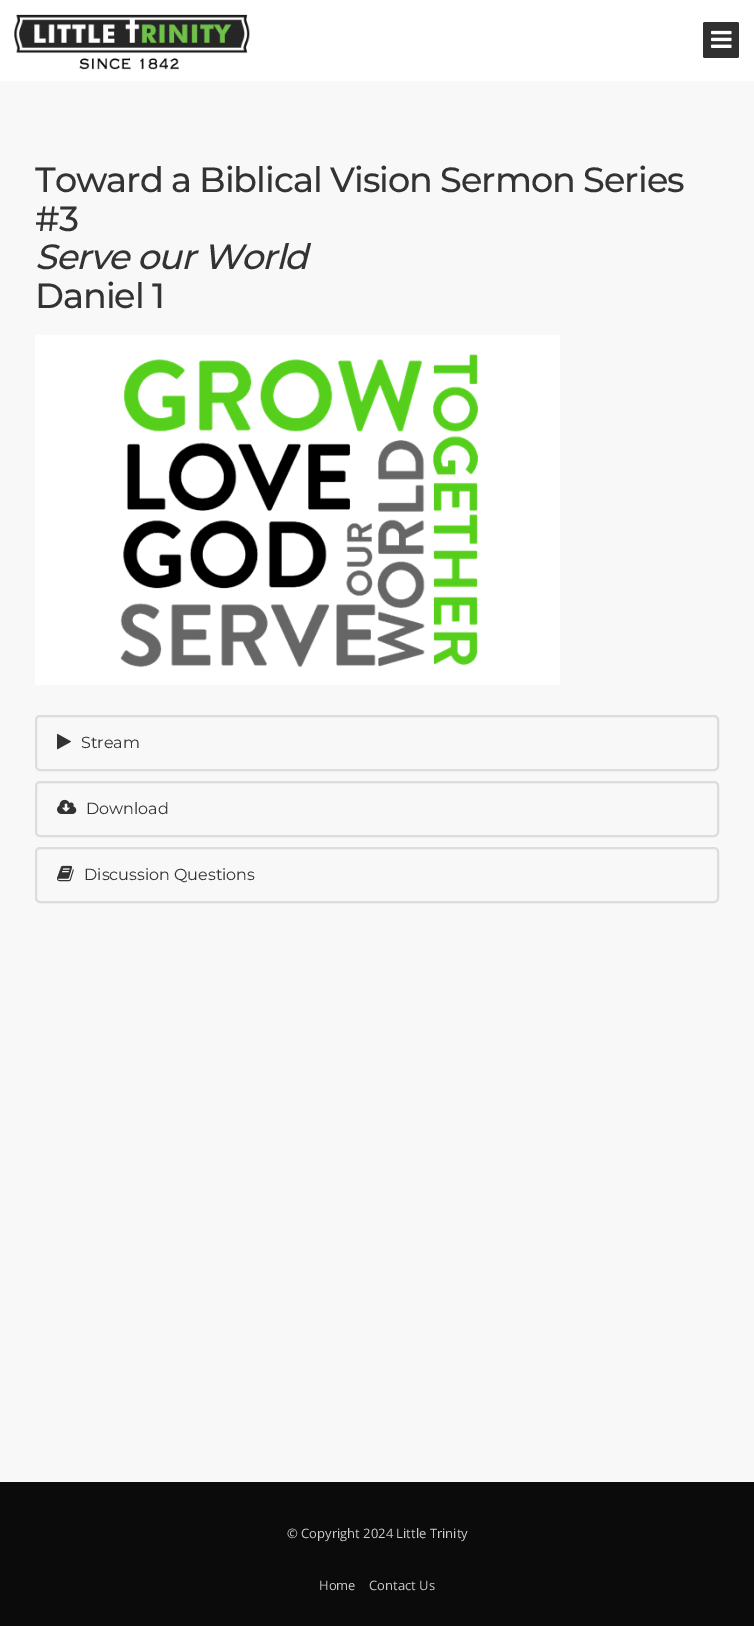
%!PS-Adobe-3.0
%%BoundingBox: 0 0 754 1626
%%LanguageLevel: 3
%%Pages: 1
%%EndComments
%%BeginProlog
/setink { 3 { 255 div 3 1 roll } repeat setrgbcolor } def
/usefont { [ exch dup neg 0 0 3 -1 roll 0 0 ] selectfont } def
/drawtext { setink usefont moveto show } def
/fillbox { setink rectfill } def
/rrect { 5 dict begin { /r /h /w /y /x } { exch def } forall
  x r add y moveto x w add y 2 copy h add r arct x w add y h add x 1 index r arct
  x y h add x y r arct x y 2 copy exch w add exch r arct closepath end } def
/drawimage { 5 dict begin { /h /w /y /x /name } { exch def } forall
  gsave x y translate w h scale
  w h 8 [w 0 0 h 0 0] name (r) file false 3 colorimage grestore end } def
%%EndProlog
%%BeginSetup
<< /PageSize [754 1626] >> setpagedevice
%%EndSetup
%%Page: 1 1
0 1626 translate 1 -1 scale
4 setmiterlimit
0 0 754 1626 255 255 255 fillbox
(assets/img1.rgb) 14 14 236 56 drawimage
48 48 48 setink
703 22 36 36 2 rrect fill
(assets/img2.rgb) 711 30 21 18 drawimage
0 81 754 1401 248 248 248 fillbox
/Montserrat-Thin 35 usefont
51 51 51 setink
35 192 moveto -1 0 (Toward a Biblical Vision Sermon Series) ashow
35 231 moveto -1 0 (#3) ashow
/Montserrat-ThinItalic 35 usefont
35 269 moveto -1 0 (Serve our World) ashow
/Montserrat-Thin 35 usefont
35 308 moveto -1 0 (Daniel 1) ashow
(assets/img3.rgb) 35 335 525 350 drawimage
221 221 221 setink
2 setlinewidth
36 716 682 54 4 rrect stroke
(assets/img4.rgb) 57 733 15 17 drawimage
(Stream) 81 748 /Montserrat-Regular 16 51 51 51 drawtext
221 221 221 setink
36 782 682 54 4 rrect stroke
(assets/img5.rgb) 57 799 20 15 drawimage
(Download) 86 814 /Montserrat-Regular 16 51 51 51 drawtext
221 221 221 setink
36 848 682 54 4 rrect stroke
(assets/img6.rgb) 57 865 17 17 drawimage
(Discussion Questions) 84 880 /Montserrat-Regular 16 51 51 51 drawtext
0 1482 754 144 11 11 11 fillbox
(© Copyright 2024 Little Trinity) 287 1538 /OpenSans-Regular 13 204 204 204 drawtext
(Home) 319 1590 /OpenSans-Regular 13 204 204 204 drawtext
(Contact Us) 369 1590 /OpenSans-Regular 13 204 204 204 drawtext
showpage
%%EOF
